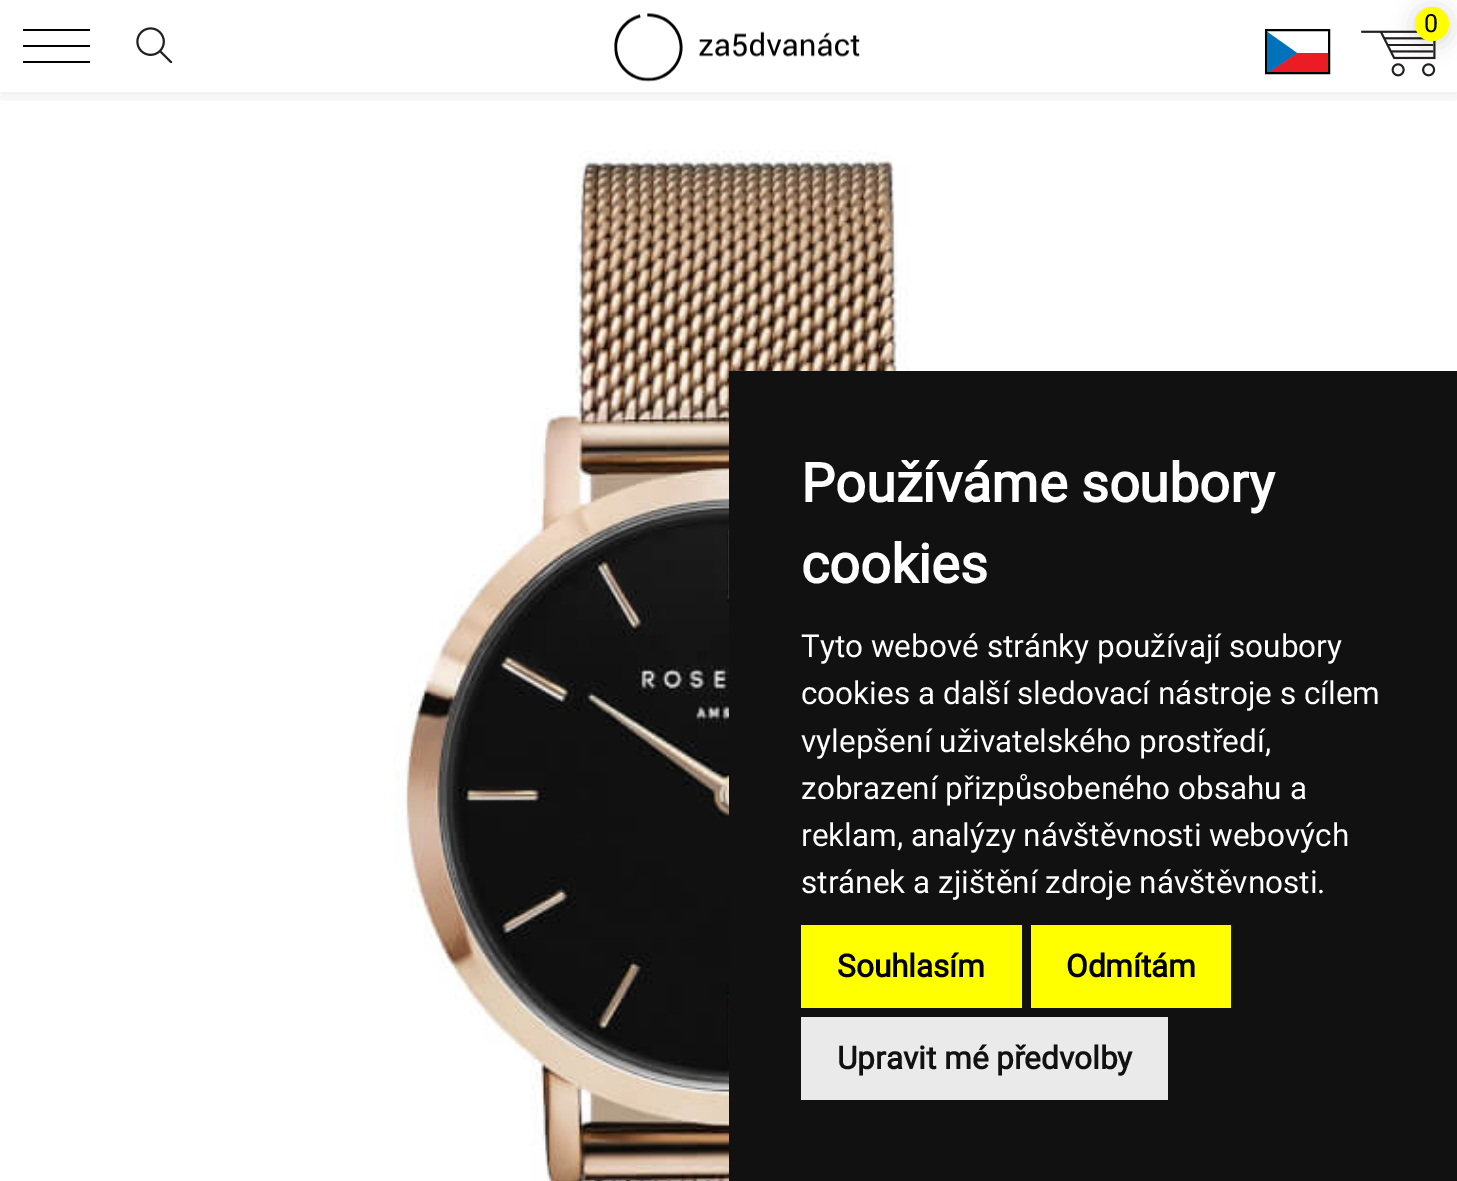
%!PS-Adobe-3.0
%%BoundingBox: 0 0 1457 1181
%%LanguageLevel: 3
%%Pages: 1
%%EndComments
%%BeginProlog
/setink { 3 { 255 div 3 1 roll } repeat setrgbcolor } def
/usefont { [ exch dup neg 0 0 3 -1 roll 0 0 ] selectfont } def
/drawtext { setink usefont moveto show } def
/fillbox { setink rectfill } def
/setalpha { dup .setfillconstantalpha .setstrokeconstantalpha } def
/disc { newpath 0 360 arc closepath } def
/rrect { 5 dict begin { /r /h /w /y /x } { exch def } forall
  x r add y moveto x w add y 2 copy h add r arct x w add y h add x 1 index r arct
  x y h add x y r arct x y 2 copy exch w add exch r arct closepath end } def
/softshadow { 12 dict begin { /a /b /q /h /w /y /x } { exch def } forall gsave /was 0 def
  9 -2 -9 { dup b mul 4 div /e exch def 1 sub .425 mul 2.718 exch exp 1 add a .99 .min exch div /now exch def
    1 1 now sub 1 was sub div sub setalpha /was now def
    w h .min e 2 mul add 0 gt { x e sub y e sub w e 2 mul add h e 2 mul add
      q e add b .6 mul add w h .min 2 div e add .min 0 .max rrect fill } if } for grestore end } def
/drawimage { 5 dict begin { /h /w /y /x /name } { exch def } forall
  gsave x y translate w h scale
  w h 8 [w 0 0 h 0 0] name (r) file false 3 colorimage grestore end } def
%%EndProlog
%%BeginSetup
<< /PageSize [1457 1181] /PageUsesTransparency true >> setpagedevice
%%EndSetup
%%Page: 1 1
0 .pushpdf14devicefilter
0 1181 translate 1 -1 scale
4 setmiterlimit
0 0 1457 1181 255 255 255 fillbox
gsave
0 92 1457 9 rectclip
0 0 0 setink
0 0 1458 92 0 11 0.1 softshadow
grestore
(assets/img1.rgb) 614 13 246 69 drawimage
(assets/img2.rgb) 1361 30 75 47 drawimage
0 0 0 setink
1415 9 34 34 17 11 0.15 softshadow
255 255 0 setink
1432 24 17 disc fill
/Roboto-Regular 25 usefont
0 0 0 setink
1424 32 moveto 2 0 (0) ashow
2 setlinewidth
1266 30 63 43 rectstroke
gsave
1267 32 61 40 rectclip
236 28 36 setink
1297 53 moveto 1266 74 lineto 1329 74 lineto 1329 53 lineto closepath fill
0 113 187 setink
1266 31 moveto 1266 74 lineto 1297 53 lineto closepath fill
grestore
23 29 67 2 0 0 0 fillbox
23 45 67 2 0 0 0 fillbox
23 61 67 2 0 0 0 fillbox
(assets/img3.rgb) 136 27 37 36 drawimage
(assets/img4.rgb) 394 150 712 1031 drawimage
729 371 728 810 17 17 17 fillbox
(Používáme soubory) 801 502 /Roboto-Bold 54 255 255 255 drawtext
(cookies) 801 583 /Roboto-Bold 54 255 255 255 drawtext
(Tyto webové stránky používají soubory) 801 657 /Roboto-Regular 31.5 255 255 255 drawtext
(cookies a další sledovací nástroje s cílem) 801 704 /Roboto-Regular 31.5 255 255 255 drawtext
(vylepšení uživatelského prostředí,) 801 752 /Roboto-Regular 31.5 255 255 255 drawtext
(zobrazení přizpůsobeného obsahu a) 801 799 /Roboto-Regular 31.5 255 255 255 drawtext
(reklam, analýzy návštěvnosti webových) 801 846 /Roboto-Regular 31.5 255 255 255 drawtext
(stránek a zjištění zdroje návštěvnosti.) 801 893 /Roboto-Regular 31.5 255 255 255 drawtext
801 925 221 83 255 255 0 fillbox
(Souhlasím) 837 977 /Roboto-Bold 31.5 0 0 0 drawtext
1031 925 200 83 255 255 0 fillbox
(Odmítám) 1066 977 /Roboto-Bold 31.5 0 0 0 drawtext
801 1017 367 83 234 234 234 fillbox
(Upravit mé předvolby) 837 1069 /Roboto-Bold 31.5 17 17 17 drawtext
.poppdf14devicefilter showpage
%%EOF
